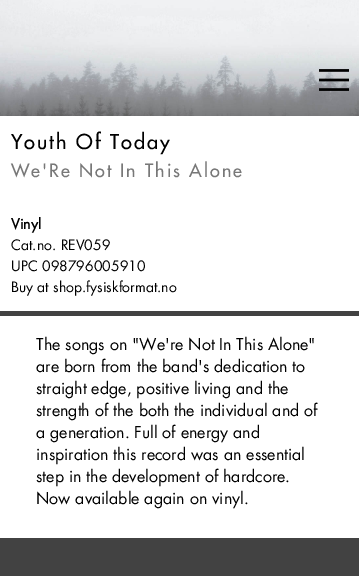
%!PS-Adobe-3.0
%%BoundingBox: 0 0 359 576
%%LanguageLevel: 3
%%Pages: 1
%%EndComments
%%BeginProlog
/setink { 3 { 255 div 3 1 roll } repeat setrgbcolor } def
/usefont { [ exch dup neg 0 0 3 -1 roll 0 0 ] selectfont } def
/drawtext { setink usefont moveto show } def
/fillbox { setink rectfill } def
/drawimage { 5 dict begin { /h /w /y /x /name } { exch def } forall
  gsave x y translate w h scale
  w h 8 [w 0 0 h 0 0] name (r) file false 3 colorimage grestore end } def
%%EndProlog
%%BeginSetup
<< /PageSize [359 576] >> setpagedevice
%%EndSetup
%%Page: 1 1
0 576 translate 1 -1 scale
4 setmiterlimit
0 0 359 576 66 66 66 fillbox
(assets/img1.rgb) 0 0 359 116 drawimage
(assets/img2.rgb) 319 69 30 22 drawimage
0 116 359 195 255 255 255 fillbox
/Futura-Regular 20 usefont
0 0 0 setink
11 149 moveto 2 0 (Youth Of Today) ashow
/Futura-Regular 18 usefont
120 120 120 setink
11 177 moveto 2 0 (We'Re Not In This Alone) ashow
(Vinyl) 11 229 /Futura-Bold 14 0 0 0 drawtext
(Cat.no. REV059) 11 250 /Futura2-Regular 14 0 0 0 drawtext
(UPC 098796005910) 11 271 /Futura2-Regular 14 0 0 0 drawtext
(Buy at shop.fysiskformat.no) 11 292 /Futura2-Regular 14 0 0 0 drawtext
0 316 359 222 255 255 255 fillbox
(The songs on "We're Not In This Alone") 36 350 /Futura2-Regular 16 0 0 0 drawtext
(are born from the band's dedication to) 36 372 /Futura2-Regular 16 0 0 0 drawtext
(straight edge, positive living and the) 36 394 /Futura2-Regular 16 0 0 0 drawtext
(strength of the both the individual and of) 36 416 /Futura2-Regular 16 0 0 0 drawtext
(a generation. Full of energy and) 36 438 /Futura2-Regular 16 0 0 0 drawtext
(inspiration this record was an essential) 36 460 /Futura2-Regular 16 0 0 0 drawtext
(step in the development of hardcore.) 36 482 /Futura2-Regular 16 0 0 0 drawtext
(Now available again on vinyl.) 36 504 /Futura2-Regular 16 0 0 0 drawtext
showpage
%%EOF
